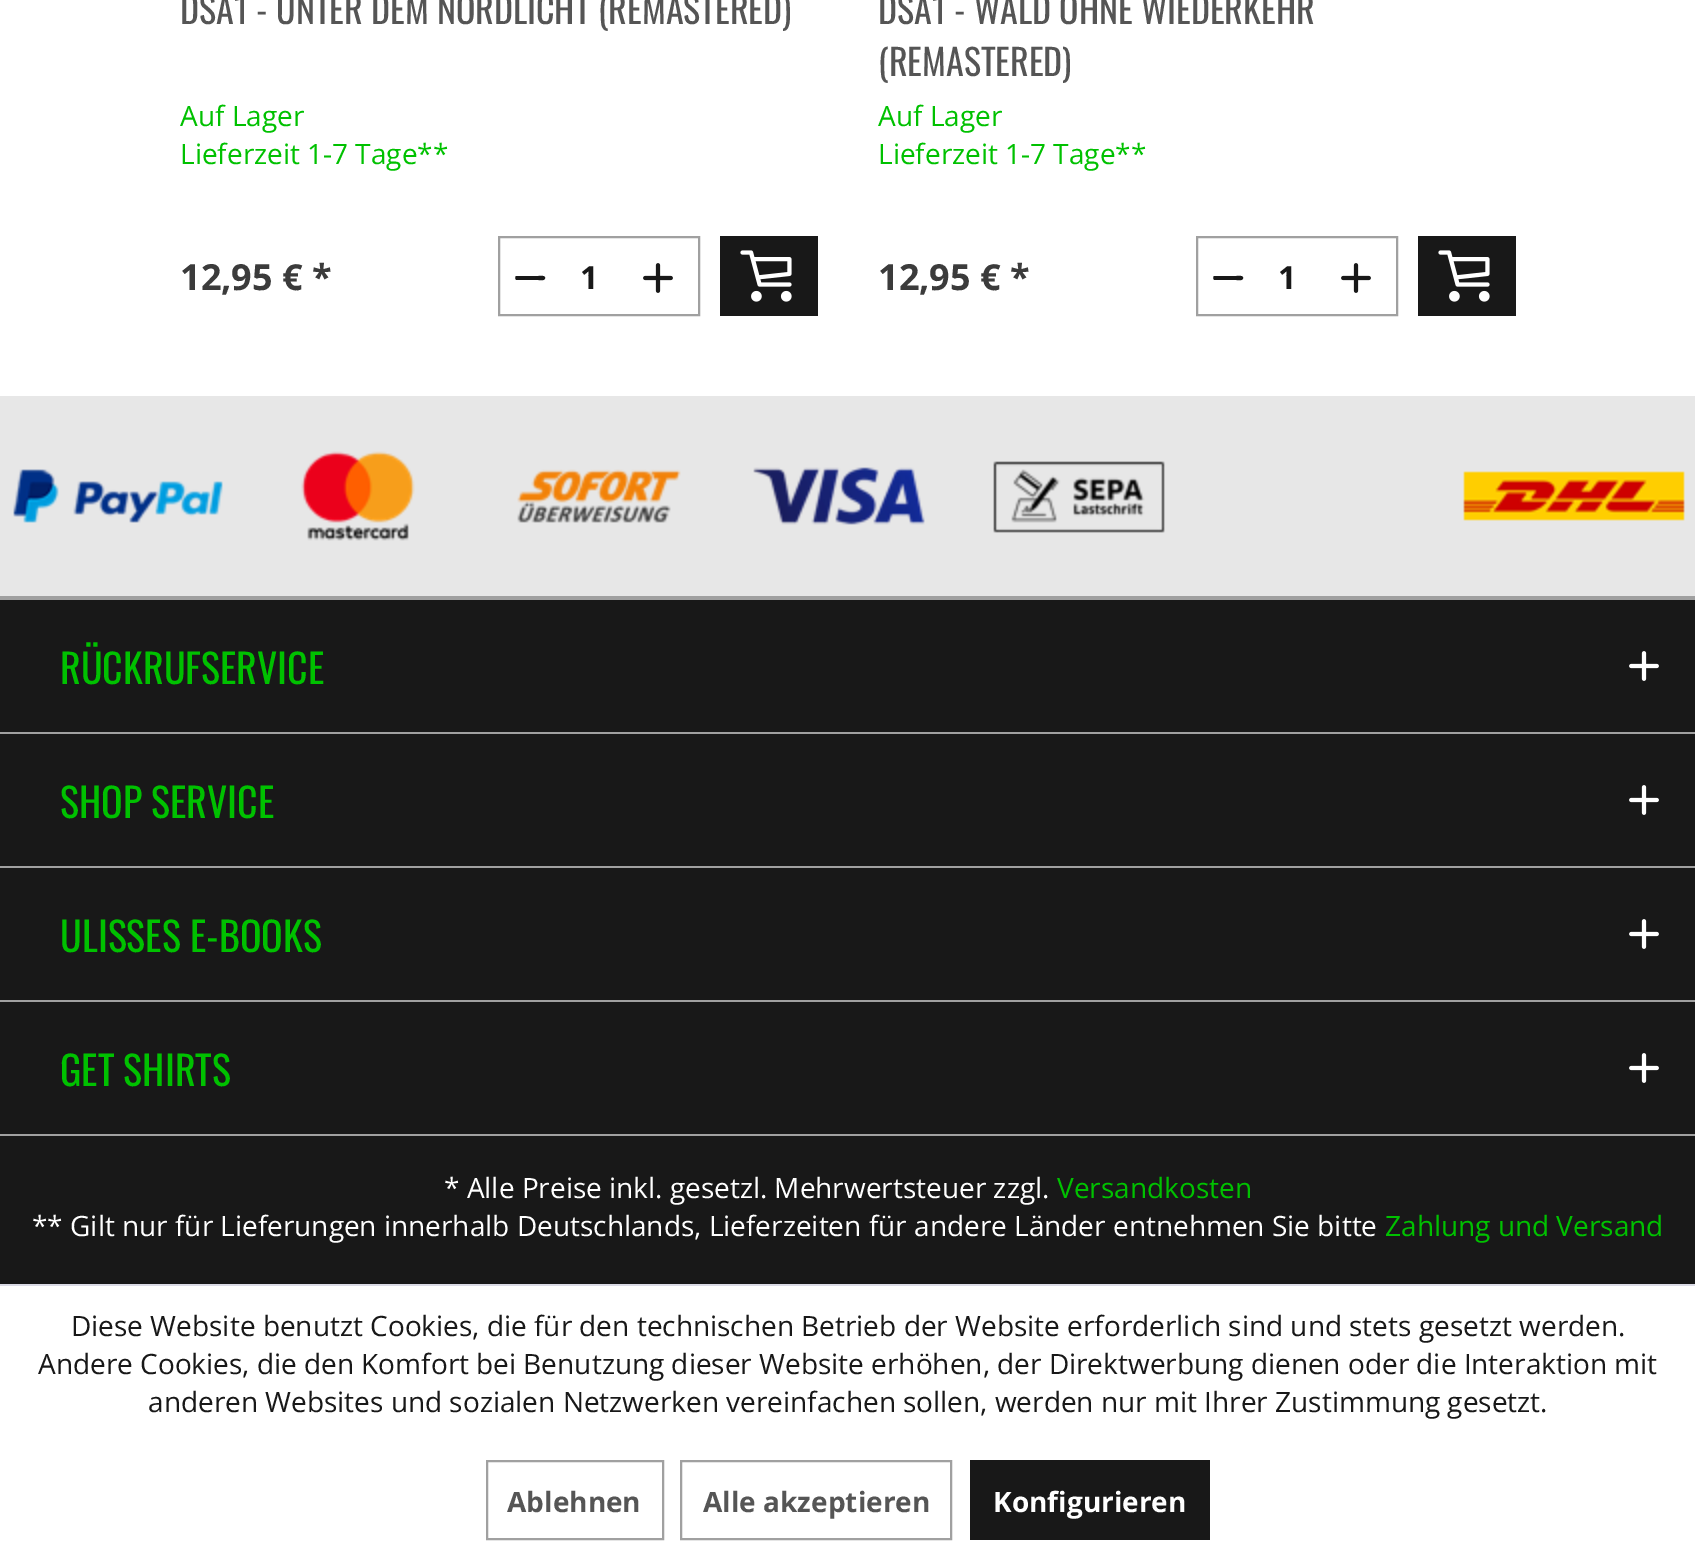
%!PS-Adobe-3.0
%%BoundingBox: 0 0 1695 1559
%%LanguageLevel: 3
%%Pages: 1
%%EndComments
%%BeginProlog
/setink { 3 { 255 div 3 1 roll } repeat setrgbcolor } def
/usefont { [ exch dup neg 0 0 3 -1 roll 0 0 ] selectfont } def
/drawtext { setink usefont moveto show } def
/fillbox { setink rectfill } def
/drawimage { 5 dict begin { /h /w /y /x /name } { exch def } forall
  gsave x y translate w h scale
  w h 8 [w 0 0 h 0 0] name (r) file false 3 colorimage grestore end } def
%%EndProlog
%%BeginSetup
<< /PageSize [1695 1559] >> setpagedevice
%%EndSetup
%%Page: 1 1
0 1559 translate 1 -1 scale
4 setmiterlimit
0 0 1695 1559 255 255 255 fillbox
(DSA1 - UNTER DEM NORDLICHT \(REMASTERED\)) 180 24 /Oswald-Regular 36 85 85 85 drawtext
(Auf Lager) 180 126 /OpenSans-Regular 28 0 193 0 drawtext
(Lieferzeit 1-7 Tage**) 180 164 /OpenSans-Regular 28 0 193 0 drawtext
(12,95 € *) 180 290 /OpenSans-Bold 36 59 59 59 drawtext
160 160 160 setink
2 setlinewidth
499 237 200 78 rectstroke
24 24 24 setink
517 280 moveto 515 280 514.5 276.5 516.5 276 curveto 538.5 276 lineto 540 276 546 275 545 278.5 curveto 544 281 540 280 538.5 280 curveto closepath fill
(assets/img1.rgb) 643 263 30 30 drawimage
(1) 580 289 /OpenSans-Bold 32 24 24 24 drawtext
720 236 98 80 24 24 24 fillbox
(assets/img2.rgb) 740 250 52 52 drawimage
(DSA1 - WALD OHNE WIEDERKEHR) 878 24 /Oswald-Regular 36 85 85 85 drawtext
(\(REMASTERED\)) 878 76 /Oswald-Regular 36 85 85 85 drawtext
(Auf Lager) 878 126 /OpenSans-Regular 28 0 193 0 drawtext
(Lieferzeit 1-7 Tage**) 878 164 /OpenSans-Regular 28 0 193 0 drawtext
(12,95 € *) 878 290 /OpenSans-Bold 36 59 59 59 drawtext
160 160 160 setink
1197 237 200 78 rectstroke
24 24 24 setink
1215 280 moveto 1213 280 1212.5 276.5 1214.5 276 curveto 1236.5 276 lineto 1238 276 1244 275 1243 278.5 curveto 1242 281 1238 280 1236.5 280 curveto closepath fill
(assets/img1.rgb) 1341 263 30 30 drawimage
(1) 1278 289 /OpenSans-Bold 32 24 24 24 drawtext
1418 236 98 80 24 24 24 fillbox
(assets/img2.rgb) 1438 250 52 52 drawimage
0 396 1695 200 231 231 231 fillbox
(assets/img3.rgb) 13 469 210 54 drawimage
(assets/img4.rgb) 301 451 114 90 drawimage
(assets/img5.rgb) 517 469 164 54 drawimage
(assets/img6.rgb) 753 467 172 58 drawimage
(assets/img7.rgb) 993 461 172 72 drawimage
(assets/img8.rgb) 1463 471 222 50 drawimage
0 600 1695 684 24 24 24 fillbox
0 596 1695 4 160 160 160 fillbox
(RÜCKRUFSERVICE) 60 684 /Oswald-Regular 40 0 193 0 drawtext
(assets/img9.rgb) 1629 651 30 30 drawimage
0 732 1695 2 160 160 160 fillbox
(SHOP SERVICE) 60 818 /Oswald-Regular 40 0 193 0 drawtext
(assets/img9.rgb) 1629 785 30 30 drawimage
0 866 1695 2 160 160 160 fillbox
(ULISSES E-BOOKS) 60 952 /Oswald-Regular 40 0 193 0 drawtext
(assets/img9.rgb) 1629 919 30 30 drawimage
0 1000 1695 2 160 160 160 fillbox
0 1134 1695 2 160 160 160 fillbox
(GET SHIRTS) 60 1086 /Oswald-Regular 40 0 193 0 drawtext
(assets/img9.rgb) 1629 1053 30 30 drawimage
(* Alle Preise inkl. gesetzl. Mehrwertsteuer zzgl.) 444 1198 /OpenSans-Regular 28 255 255 255 drawtext
(Versandkosten) 1057 1198 /OpenSans-Regular 28 0 193 0 drawtext
(** Gilt nur für Lieferungen innerhalb Deutschlands, Lieferzeiten für andere Länder entnehmen Sie bitte) 32 1236 /OpenSans-Regular 28 255 255 255 drawtext
(Zahlung und Versand) 1385 1236 /OpenSans-Regular 28 0 193 0 drawtext
0 1284 1695 2 218 218 229 fillbox
(Diese Website benutzt Cookies, die für den technischen Betrieb der Website erforderlich sind und stets gesetzt werden.) 71 1336 /OpenSans-Regular 28 24 24 24 drawtext
(Andere Cookies, die den Komfort bei Benutzung dieser Website erhöhen, der Direktwerbung dienen oder die Interaktion mit) 38 1374 /OpenSans-Regular 28 24 24 24 drawtext
(anderen Websites und sozialen Netzwerken vereinfachen sollen, werden nur mit Ihrer Zustimmung gesetzt.) 148 1412 /OpenSans-Regular 28 24 24 24 drawtext
160 160 160 setink
487 1461 176 78 rectstroke
(Ablehnen) 507 1512 /OpenSans-Bold 28 85 85 85 drawtext
160 160 160 setink
681 1461 270 78 rectstroke
(Alle akzeptieren) 703 1512 /OpenSans-Bold 28 85 85 85 drawtext
970 1460 240 80 24 24 24 fillbox
(Konfigurieren) 993 1512 /OpenSans-Bold 28 255 255 255 drawtext
showpage
%%EOF
